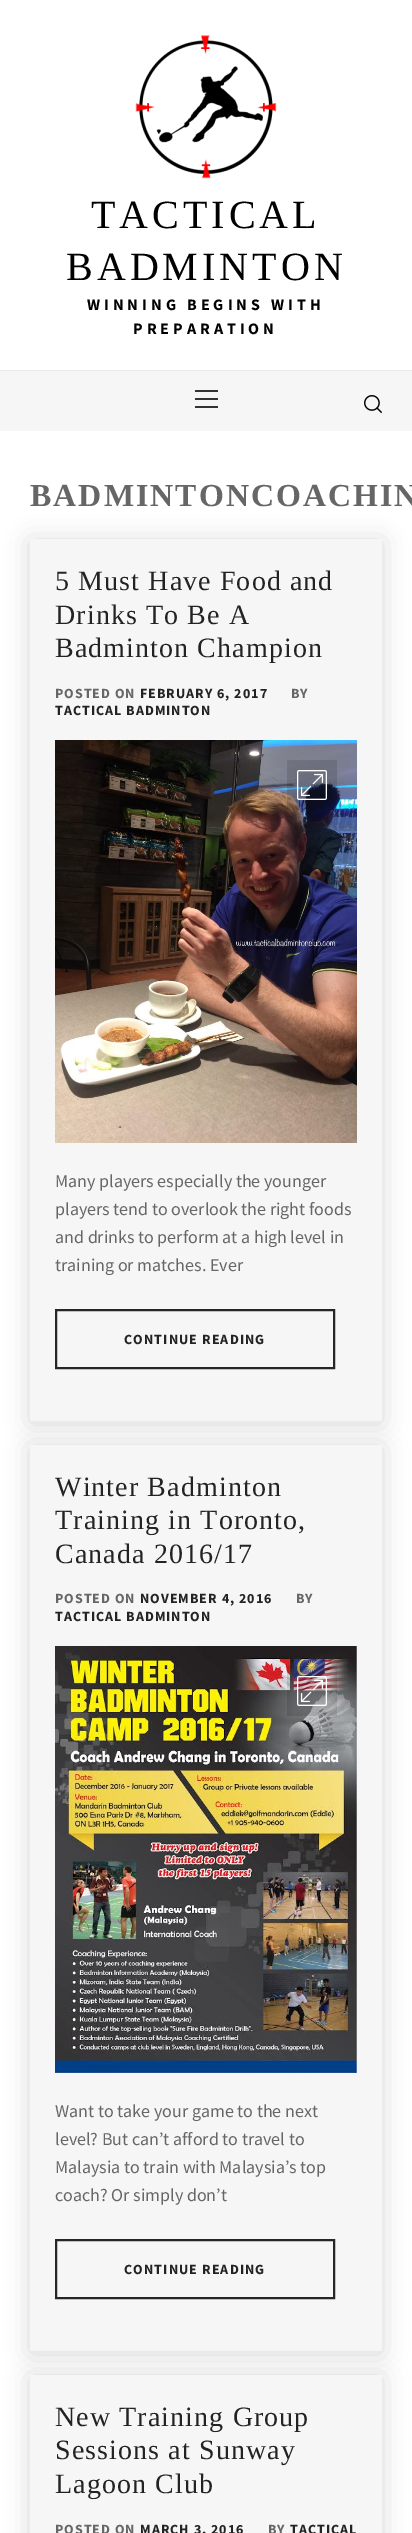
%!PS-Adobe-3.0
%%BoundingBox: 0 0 412 2533
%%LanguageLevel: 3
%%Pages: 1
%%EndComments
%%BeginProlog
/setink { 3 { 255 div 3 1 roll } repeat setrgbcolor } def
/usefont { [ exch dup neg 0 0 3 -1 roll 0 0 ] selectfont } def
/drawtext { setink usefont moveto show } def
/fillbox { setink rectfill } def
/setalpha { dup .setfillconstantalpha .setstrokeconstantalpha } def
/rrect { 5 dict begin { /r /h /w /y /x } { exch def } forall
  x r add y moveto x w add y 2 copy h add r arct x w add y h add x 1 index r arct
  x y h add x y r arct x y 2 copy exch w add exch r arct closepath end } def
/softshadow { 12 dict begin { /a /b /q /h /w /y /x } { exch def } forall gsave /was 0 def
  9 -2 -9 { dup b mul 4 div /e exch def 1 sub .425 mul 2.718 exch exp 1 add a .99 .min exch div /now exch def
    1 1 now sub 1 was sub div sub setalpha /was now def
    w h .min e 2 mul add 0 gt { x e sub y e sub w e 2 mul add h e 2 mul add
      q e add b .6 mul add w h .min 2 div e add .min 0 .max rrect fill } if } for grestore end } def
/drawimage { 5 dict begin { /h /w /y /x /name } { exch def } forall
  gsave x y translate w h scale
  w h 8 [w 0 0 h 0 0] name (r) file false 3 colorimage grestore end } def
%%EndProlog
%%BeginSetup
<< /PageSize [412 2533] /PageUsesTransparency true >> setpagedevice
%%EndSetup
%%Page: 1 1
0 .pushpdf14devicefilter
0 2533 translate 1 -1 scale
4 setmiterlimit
0 0 412 2533 255 255 255 fillbox
(assets/img1.rgb) 135 35 142 144 drawimage
/LiberationSerif-Regular 40 usefont
0 0 0 setink
91 228 moveto 4 0 (TACTICAL) ashow
66 280 moveto 4 0 (BADMINTON) ashow
/SourceSansPro-Bold 16 usefont
87 310 moveto 4 0 (WINNING BEGINS WITH) ashow
133 334 moveto 4 0 (PREPARATION) ashow
0 371 412 60 246 246 246 fillbox
0 370 412 1 234 234 234 fillbox
195 398 23 2 51 51 51 fillbox
195 390 23 2 51 51 51 fillbox
195 406 23 2 51 51 51 fillbox
(assets/img2.rgb) 364 395 18 18 drawimage
0 0 0 setink
30 541 352 882 0 12.5 0.15 softshadow
/LiberationSerif-Bold 32 usefont
102 102 102 setink
30 506 moveto 2 0 (BADMINTONCOACHIN) ashow
30 539 352 882 246 246 246 fillbox
/LiberationSerif-Regular 28 usefont
35 35 35 setink
55 590 moveto 1.1 0 (5 Must Have Food and) ashow
55 624 moveto 1.1 0 (Drinks To Be A) ashow
55 657 moveto 1.1 0 (Badminton Champion) ashow
/SourceSansPro-Bold 14 usefont
102 102 102 setink
55 698 moveto 1 0 (POSTED ON) ashow
35 35 35 setink
140 698 moveto 1 0 (FEBRUARY 6, 2017) ashow
102 102 102 setink
291 698 moveto 1 0 (BY) ashow
35 35 35 setink
55 715 moveto 1 0 (TACTICAL BADMINTON) ashow
(assets/img3.rgb) 55 740 302 403 drawimage
0.12 setalpha
287 760 50 50 0 0 0 fillbox
1 setalpha
(assets/img4.rgb) 297 770 30 30 drawimage
(Many players especially the younger) 55 1187 /SourceSansPro-Regular 18 102 102 102 drawtext
(players tend to overlook the right foods) 55 1215 /SourceSansPro-Regular 18 102 102 102 drawtext
(and drinks to perform at a high level in) 55 1243 /SourceSansPro-Regular 18 102 102 102 drawtext
(training or matches. Ever) 55 1271 /SourceSansPro-Regular 18 102 102 102 drawtext
38 38 38 setink
2 setlinewidth
56 1310 278 58 rectstroke
/SourceSansPro-Bold 14 usefont
35 35 35 setink
124 1344 moveto 1.1 0 (CONTINUE READING) ashow
0 0 0 setink
30 1447 352 906 0 12.5 0.15 softshadow
30 1445 352 906 246 246 246 fillbox
/LiberationSerif-Regular 28 usefont
35 35 35 setink
55 1496 moveto 1.1 0 (Winter Badminton) ashow
55 1529 moveto 1.1 0 (Training in Toronto,) ashow
55 1563 moveto 1.1 0 (Canada 2016/17) ashow
/SourceSansPro-Bold 14 usefont
102 102 102 setink
55 1603 moveto 1 0 (POSTED ON) ashow
35 35 35 setink
140 1603 moveto 1 0 (NOVEMBER 4, 2016) ashow
102 102 102 setink
296 1603 moveto 1 0 (BY) ashow
35 35 35 setink
55 1621 moveto 1 0 (TACTICAL BADMINTON) ashow
(assets/img5.rgb) 55 1646 302 427 drawimage
0.12 setalpha
287 1666 50 50 0 0 0 fillbox
1 setalpha
(assets/img6.rgb) 297 1676 30 30 drawimage
(Want to take your game to the next) 55 2117 /SourceSansPro-Regular 18 102 102 102 drawtext
(level? But can’t afford to travel to) 55 2145 /SourceSansPro-Regular 18 102 102 102 drawtext
(Malaysia to train with Malaysia’s top) 55 2173 /SourceSansPro-Regular 18 102 102 102 drawtext
(coach? Or simply don’t) 55 2201 /SourceSansPro-Regular 18 102 102 102 drawtext
38 38 38 setink
56 2240 278 58 rectstroke
/SourceSansPro-Bold 14 usefont
35 35 35 setink
124 2274 moveto 1.1 0 (CONTINUE READING) ashow
0 0 0 setink
30 2377 352 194 0 12.5 0.15 softshadow
30 2375 352 158 246 246 246 fillbox
/LiberationSerif-Regular 28 usefont
35 35 35 setink
55 2426 moveto 1.1 0 (New Training Group) ashow
55 2459 moveto 1.1 0 (Sessions at Sunway) ashow
55 2493 moveto 1.1 0 (Lagoon Club) ashow
/SourceSansPro-Bold 14 usefont
102 102 102 setink
55 2534 moveto 1 0 (POSTED ON) ashow
35 35 35 setink
140 2534 moveto 1 0 (MARCH 3, 2016) ashow
102 102 102 setink
268 2534 moveto 1 0 (BY) ashow
35 35 35 setink
290 2534 moveto 1 0 (TACTICAL) ashow
.poppdf14devicefilter showpage
%%EOF
